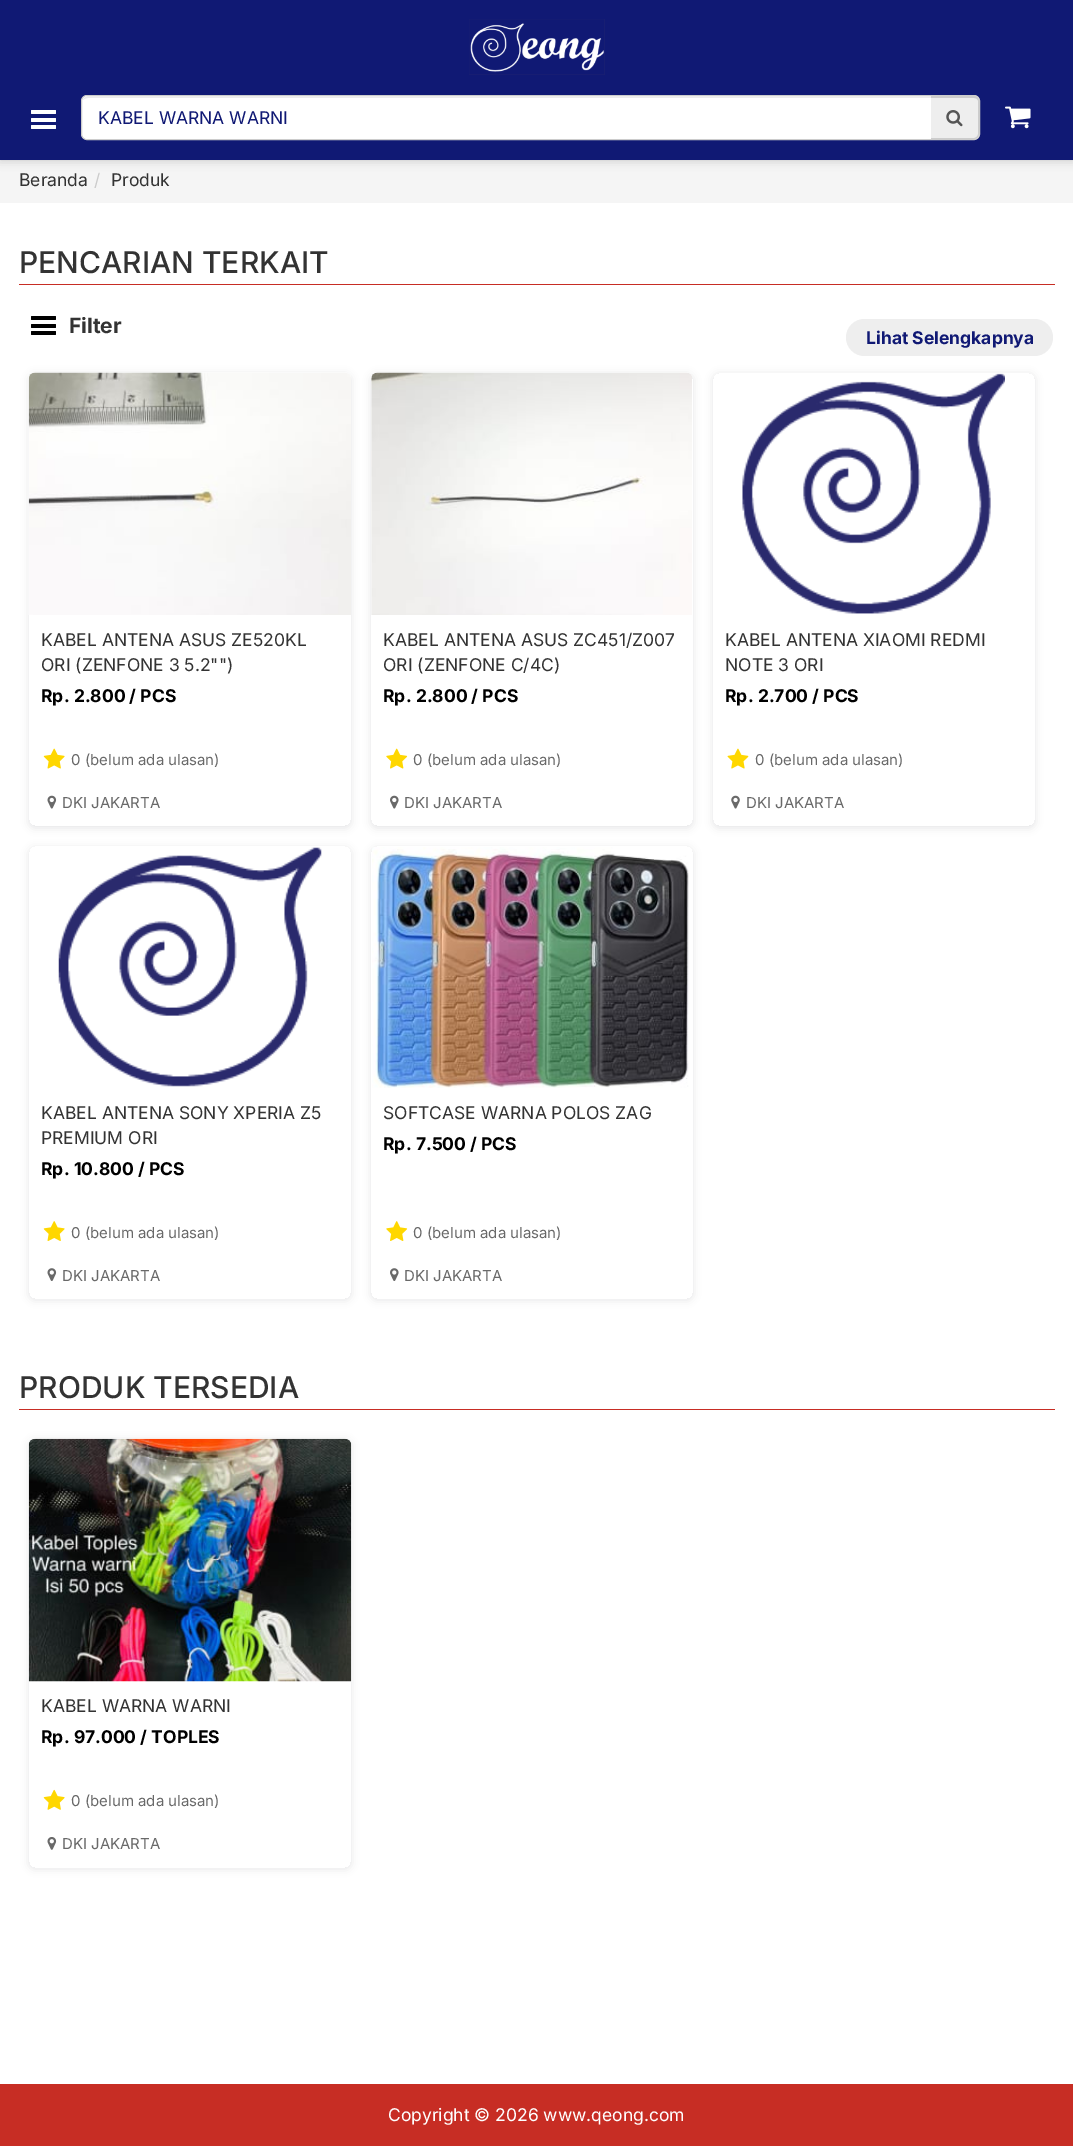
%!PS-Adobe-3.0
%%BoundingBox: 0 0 1073 2146
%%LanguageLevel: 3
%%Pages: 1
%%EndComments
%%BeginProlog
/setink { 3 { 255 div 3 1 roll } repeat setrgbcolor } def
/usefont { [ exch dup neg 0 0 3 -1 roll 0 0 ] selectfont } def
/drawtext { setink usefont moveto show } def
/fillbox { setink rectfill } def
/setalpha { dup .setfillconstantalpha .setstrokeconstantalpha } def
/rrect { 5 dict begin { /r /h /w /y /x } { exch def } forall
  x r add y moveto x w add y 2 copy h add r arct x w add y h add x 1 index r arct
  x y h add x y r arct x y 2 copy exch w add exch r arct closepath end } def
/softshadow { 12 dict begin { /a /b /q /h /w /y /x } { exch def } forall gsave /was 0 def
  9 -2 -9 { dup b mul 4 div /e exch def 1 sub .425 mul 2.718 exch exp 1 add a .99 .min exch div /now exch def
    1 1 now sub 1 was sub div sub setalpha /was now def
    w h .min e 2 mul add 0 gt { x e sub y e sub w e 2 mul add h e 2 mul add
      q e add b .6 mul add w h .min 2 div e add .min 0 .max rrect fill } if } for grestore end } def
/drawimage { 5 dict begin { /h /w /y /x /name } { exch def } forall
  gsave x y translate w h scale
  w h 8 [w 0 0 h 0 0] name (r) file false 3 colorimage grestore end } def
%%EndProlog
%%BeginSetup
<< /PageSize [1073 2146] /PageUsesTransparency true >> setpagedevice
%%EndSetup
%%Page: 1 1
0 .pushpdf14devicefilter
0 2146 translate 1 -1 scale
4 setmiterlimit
0 0 1073 2146 255 255 255 fillbox
0 160 1073 43 245 245 245 fillbox
0 0 0 setink
0 0 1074 160 0 5 0.2 softshadow
0 0 1073 160 16 25 116 fillbox
(assets/img1.rgb) 469 19 136 56 drawimage
255 255 255 setink
31 110 25 4 1 rrect fill
31 118 25 4 1 rrect fill
31 125 25 4 1 rrect fill
81.5 95.5 898 44 5.5 rrect gsave fill grestore
204 204 204 setink
stroke
255 255 255 setink
88 96 moveto 931 96 lineto 931 139 lineto 88 139 lineto 85 139 83 137 83 134 curveto 83 101 lineto 83 98 85 96 88 96 curveto closepath fill
236 236 236 setink
88 98 moveto 931 98 lineto 931 96 lineto 88 96 lineto 86 96 84 98 83 100 curveto 84 99 86 98 88 98 curveto closepath fill
(KABEL WARNA WARNI) 98 124 /Inter-Regular 17.5 16 25 116 drawtext
238 238 238 setink
931 96 moveto 974 96 lineto 977 96 979 98 979 101 curveto 979 134 lineto 979 137 977 139 974 139 curveto 931 139 lineto closepath fill
204 204 204 setink
931 96 moveto 931 98 lineto 974 98 lineto 976 98 978 99 978 101 curveto 978 134 lineto 978 136 976 138 974 138 curveto 931 138 lineto 931 139 lineto 974 139 lineto 977 139 979 137 979 134 curveto 979 101 lineto 979 98 977 96 974 96 curveto closepath fill
(assets/img2.rgb) 946 110 17 17 drawimage
(assets/img3.rgb) 1005 106 26 23 drawimage
(Beranda) 19 186 /Inter-Regular 17.5 51 51 51 drawtext
(/) 94 186 /Inter-Regular 17.5 204 204 204 drawtext
(Produk) 111 186 /Inter-Regular 17.5 51 51 51 drawtext
(PENCARIAN TERKAIT) 19 273 /Inter-Medium 30 51 51 51 drawtext
19 284 1036 1 199 45 36 fillbox
0 0 0 setink
31 316 25 4 1 rrect fill
31 324 25 4 1 rrect fill
31 331 25 4 1 rrect fill
(Filter) 69 333 /Inter-Bold 21 51 51 51 drawtext
238 238 238 setink
846 319 207 37 18.5 rrect fill
(Lihat Selengkapnya) 866 344 /Inter-Bold 17.5 16 25 116 drawtext
gsave
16 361 moveto 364 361 lineto 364 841 lineto 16 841 lineto closepath 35 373 moveto 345 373 lineto 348.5 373 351 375.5 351 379 curveto 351 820 lineto 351 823.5 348.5 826 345 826 curveto 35 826 lineto 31.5 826 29 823.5 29 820 curveto 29 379 lineto 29 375.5 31.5 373 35 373 curveto closepath eoclip newpath
49 53 59 setink
29 374 322 454 6 4 0.12 softshadow
grestore
(assets/img4.rgb) 28 372 323 243 drawimage
(KABEL ANTENA ASUS ZE520KL) 41 646 /Inter-Regular 17.5 51 51 51 drawtext
(ORI \(ZENFONE 3 5.2""\)) 41 671 /Inter-Regular 17.5 51 51 51 drawtext
(Rp. 2.800 / PCS) 41 702 /Inter-Bold 17.5 0 0 0 drawtext
(assets/img5.rgb) 43 748 22 21 drawimage
(0 \(belum ada ulasan\)) 71 765 /Inter-Regular 15 105 105 105 drawtext
(assets/img6.rgb) 47 795 10 14 drawimage
(DKI JAKARTA) 62 808 /Inter-Regular 15 105 105 105 drawtext
gsave
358 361 moveto 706 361 lineto 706 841 lineto 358 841 lineto closepath 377 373 moveto 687 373 lineto 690.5 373 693 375.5 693 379 curveto 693 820 lineto 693 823.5 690.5 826 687 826 curveto 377 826 lineto 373.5 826 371 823.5 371 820 curveto 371 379 lineto 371 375.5 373.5 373 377 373 curveto closepath eoclip newpath
49 53 59 setink
371 374 322 454 6 4 0.12 softshadow
grestore
(assets/img7.rgb) 371 372 321 243 drawimage
(KABEL ANTENA ASUS ZC451/Z007) 383 646 /Inter-Regular 17.5 51 51 51 drawtext
(ORI \(ZENFONE C/4C\)) 383 671 /Inter-Regular 17.5 51 51 51 drawtext
(Rp. 2.800 / PCS) 383 702 /Inter-Bold 17.5 0 0 0 drawtext
(assets/img8.rgb) 386 748 22 21 drawimage
(0 \(belum ada ulasan\)) 413 765 /Inter-Regular 15 105 105 105 drawtext
(assets/img9.rgb) 390 795 9 14 drawimage
(DKI JAKARTA) 404 808 /Inter-Regular 15 105 105 105 drawtext
gsave
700 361 moveto 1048 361 lineto 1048 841 lineto 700 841 lineto closepath 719 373 moveto 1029 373 lineto 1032.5 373 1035 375.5 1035 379 curveto 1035 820 lineto 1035 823.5 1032.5 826 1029 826 curveto 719 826 lineto 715.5 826 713 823.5 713 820 curveto 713 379 lineto 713 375.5 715.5 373 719 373 curveto closepath eoclip newpath
49 53 59 setink
713 374 322 454 6 4 0.12 softshadow
grestore
(assets/img10.rgb) 742 373 263 241 drawimage
(KABEL ANTENA XIAOMI REDMI) 725 646 /Inter-Regular 17.5 51 51 51 drawtext
(NOTE 3 ORI) 725 671 /Inter-Regular 17.5 51 51 51 drawtext
(Rp. 2.700 / PCS) 725 702 /Inter-Bold 17.5 0 0 0 drawtext
(assets/img11.rgb) 727 748 22 21 drawimage
(0 \(belum ada ulasan\)) 755 765 /Inter-Regular 15 105 105 105 drawtext
(assets/img12.rgb) 731 795 9 14 drawimage
(DKI JAKARTA) 746 808 /Inter-Regular 15 105 105 105 drawtext
gsave
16 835 moveto 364 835 lineto 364 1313 lineto 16 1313 lineto closepath 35 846 moveto 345 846 lineto 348.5 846 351 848.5 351 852 curveto 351 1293 lineto 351 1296.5 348.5 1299 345 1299 curveto 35 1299 lineto 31.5 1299 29 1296.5 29 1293 curveto 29 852 lineto 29 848.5 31.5 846 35 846 curveto closepath eoclip newpath
49 53 59 setink
29 848 322 452 6 4 0.12 softshadow
grestore
(assets/img13.rgb) 58 847 264 240 drawimage
(KABEL ANTENA SONY XPERIA Z5) 41 1119 /Inter-Regular 17.5 51 51 51 drawtext
(PREMIUM ORI) 41 1144 /Inter-Regular 17.5 51 51 51 drawtext
(Rp. 10.800 / PCS) 41 1175 /Inter-Bold 17.5 0 0 0 drawtext
(assets/img14.rgb) 43 1221 22 20 drawimage
(0 \(belum ada ulasan\)) 71 1238 /Inter-Regular 15 105 105 105 drawtext
(assets/img15.rgb) 47 1268 10 13 drawimage
(DKI JAKARTA) 62 1281 /Inter-Regular 15 105 105 105 drawtext
gsave
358 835 moveto 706 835 lineto 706 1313 lineto 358 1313 lineto closepath 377 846 moveto 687 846 lineto 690.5 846 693 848.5 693 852 curveto 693 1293 lineto 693 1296.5 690.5 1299 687 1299 curveto 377 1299 lineto 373.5 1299 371 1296.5 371 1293 curveto 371 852 lineto 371 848.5 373.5 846 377 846 curveto closepath eoclip newpath
49 53 59 setink
371 848 322 452 6 4 0.12 softshadow
grestore
(assets/img16.rgb) 372 847 317 241 drawimage
(SOFTCASE WARNA POLOS ZAG) 383 1119 /Inter-Regular 17.5 51 51 51 drawtext
(Rp. 7.500 / PCS) 383 1150 /Inter-Bold 17.5 0 0 0 drawtext
(assets/img17.rgb) 386 1221 22 20 drawimage
(0 \(belum ada ulasan\)) 413 1238 /Inter-Regular 15 105 105 105 drawtext
(assets/img18.rgb) 390 1268 9 13 drawimage
(DKI JAKARTA) 404 1281 /Inter-Regular 15 105 105 105 drawtext
(PRODUK TERSEDIA) 19 1398 /Inter-Medium 30 51 51 51 drawtext
19 1409 1036 1 199 45 36 fillbox
gsave
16 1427 moveto 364 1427 lineto 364 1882 lineto 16 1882 lineto closepath 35 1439 moveto 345 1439 lineto 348.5 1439 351 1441.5 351 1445 curveto 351 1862 lineto 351 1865.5 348.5 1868 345 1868 curveto 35 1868 lineto 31.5 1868 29 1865.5 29 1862 curveto 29 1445 lineto 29 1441.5 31.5 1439 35 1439 curveto closepath eoclip newpath
49 53 59 setink
29 1440 322 429 6 4 0.12 softshadow
grestore
(assets/img19.rgb) 28 1438 324 244 drawimage
(KABEL WARNA WARNI) 41 1712 /Inter-Regular 17.5 51 51 51 drawtext
(Rp. 97.000 / TOPLES) 41 1743 /Inter-Bold 17.5 0 0 0 drawtext
(assets/img20.rgb) 43 1789 22 21 drawimage
(0 \(belum ada ulasan\)) 71 1806 /Inter-Regular 15 105 105 105 drawtext
(assets/img21.rgb) 47 1837 10 13 drawimage
(DKI JAKARTA) 62 1849 /Inter-Regular 15 105 105 105 drawtext
0 2084 1073 62 199 45 36 fillbox
(Copyright © 2026 www.qeong.com) 388 2121 /Inter-Regular 17.5 255 255 255 drawtext
.poppdf14devicefilter showpage
%%EOF
